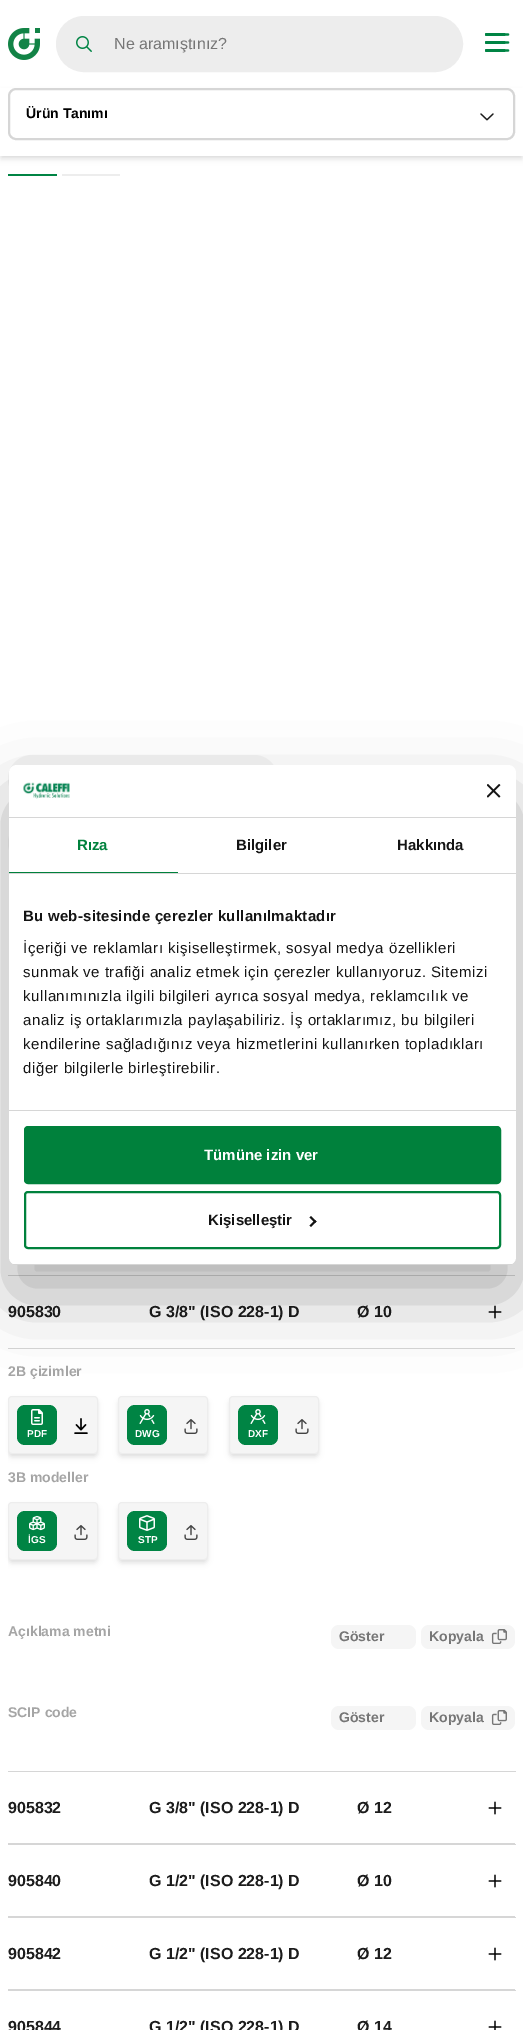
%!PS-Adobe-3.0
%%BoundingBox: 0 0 523 2030
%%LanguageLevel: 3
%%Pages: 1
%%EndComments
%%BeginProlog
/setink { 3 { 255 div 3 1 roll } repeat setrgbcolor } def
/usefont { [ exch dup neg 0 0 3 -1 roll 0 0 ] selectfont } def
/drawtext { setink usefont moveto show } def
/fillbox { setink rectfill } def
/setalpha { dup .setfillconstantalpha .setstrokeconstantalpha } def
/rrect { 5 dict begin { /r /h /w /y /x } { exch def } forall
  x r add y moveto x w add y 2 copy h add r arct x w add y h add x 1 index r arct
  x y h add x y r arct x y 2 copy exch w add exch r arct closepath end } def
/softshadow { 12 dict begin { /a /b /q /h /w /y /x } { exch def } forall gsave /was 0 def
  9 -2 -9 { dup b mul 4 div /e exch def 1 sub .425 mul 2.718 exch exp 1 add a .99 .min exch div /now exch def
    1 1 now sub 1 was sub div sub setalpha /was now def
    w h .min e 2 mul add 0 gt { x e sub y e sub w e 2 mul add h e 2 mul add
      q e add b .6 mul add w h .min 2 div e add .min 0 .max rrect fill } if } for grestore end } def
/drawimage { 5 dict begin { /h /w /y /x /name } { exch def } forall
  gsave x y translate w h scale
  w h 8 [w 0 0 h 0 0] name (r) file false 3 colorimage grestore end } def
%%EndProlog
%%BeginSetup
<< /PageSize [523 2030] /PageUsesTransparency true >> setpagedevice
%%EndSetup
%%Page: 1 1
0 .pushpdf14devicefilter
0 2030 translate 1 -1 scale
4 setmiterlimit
0 0 523 2030 255 255 255 fillbox
(assets/img1.rgb) 8 28 32 32 drawimage
237 237 237 setink
57 17 405 54 27 rrect gsave fill grestore
2 setlinewidth
stroke
(assets/img2.rgb) 76 36 16 16 drawimage
(Ne aramıştınız?) 114 49 /LiberationSans-Regular 16 118 118 118 drawtext
0 132 68 setink
490 33 moveto 502 33 lineto 508.5 33.5 lineto 509.5 33.5 509.5 35.5 508.5 35.5 curveto 502 36 lineto 490 36 lineto 489 36 485 36 485 35.5 curveto 485 33.5 lineto 485 33 489 33 490 33 curveto closepath 490 41 moveto 502 41 lineto 508.5 41.5 lineto 509.5 41.5 509.5 43.5 508.5 43.5 curveto 502 44 lineto 490 44 lineto 489 44 485 44 485 43.5 curveto 485 41.5 lineto 485 41 489 41 490 41 curveto closepath 490 49 moveto 502 49 lineto 508.5 49.5 lineto 509.5 49.5 509.5 51.5 508.5 51.5 curveto 502 52 lineto 490 52 lineto 489 52 485 52 485 51.5 curveto 485 49.5 lineto 485 49 489 49 490 49 curveto closepath fill
0 0 0 setink
1 93 521 66 0 3 0.1 softshadow
1 91 521 66 0 2 0.06 softshadow
0 88 523 68 255 255 255 fillbox
214 214 214 setink
9 89 505 50 7 rrect stroke
(Ürün Tanımı) 26 118 /LiberationSans-Bold 14 0 0 0 drawtext
(assets/img3.rgb) 480 113 14 8 drawimage
8 174 49 2 0 132 68 fillbox
62 174 58 2 237 237 237 fillbox
245 245 245 setink
8 755 270 48 24 rrect fill
8 819 140 48 24 rrect fill
8 1275 507 1 214 214 214 fillbox
(905830) 8 1317 /LiberationSans-Bold 16 28 28 28 drawtext
(G 3/8" \(ISO 228-1\) D) 149 1317 /LiberationSans-Bold 16 28 28 28 drawtext
8 1348 507 1 214 214 214 fillbox
(Ø 10) 357 1317 /LiberationSans-Bold 16 28 28 28 drawtext
(assets/img4.rgb) 488 1305 14 14 drawimage
8 1771 508 1 214 214 214 fillbox
(2B çizimler) 8 1376 /LiberationSans-Bold 14 165 165 165 drawtext
gsave
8 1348 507 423 rectclip
0 0 0 setink
9 1401 88 56 3 3 0.1 softshadow
grestore
0 0 0 setink
9 1399 88 56 3 2 0.06 softshadow
245 245 245 setink
8.5 1396.5 89 57 3.5 rrect gsave fill grestore
237 237 237 setink
1 setlinewidth
stroke
0 132 68 setink
17 1405 40 40 8 rrect fill
(assets/img5.rgb) 31 1409 12 16 drawimage
(PDF) 27 1437 /LiberationSans-Bold 10 255 255 255 drawtext
(assets/img6.rgb) 74 1418 14 16 drawimage
0 0 0 setink
119 1401 88 56 3 3 0.1 softshadow
119 1399 88 56 3 2 0.06 softshadow
245 245 245 setink
118.5 1396.5 89 57 3.5 rrect gsave fill grestore
237 237 237 setink
stroke
0 132 68 setink
127 1405 40 40 8 rrect fill
(assets/img7.rgb) 139 1409 16 15 drawimage
(DWG) 135 1437 /LiberationSans-Bold 10 255 255 255 drawtext
(assets/img8.rgb) 184 1419 14 15 drawimage
0 0 0 setink
230 1401 88 56 3 3 0.1 softshadow
230 1399 88 56 3 2 0.06 softshadow
245 245 245 setink
229.5 1396.5 89 57 3.5 rrect gsave fill grestore
237 237 237 setink
stroke
0 132 68 setink
238 1405 40 40 8 rrect fill
(assets/img7.rgb) 250 1409 16 15 drawimage
(DXF) 248 1437 /LiberationSans-Bold 10 255 255 255 drawtext
(assets/img8.rgb) 295 1419 14 15 drawimage
(3B modeller) 8 1482 /LiberationSans-Bold 14 165 165 165 drawtext
gsave
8 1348 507 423 rectclip
0 0 0 setink
9 1507 88 56 3 3 0.1 softshadow
grestore
0 0 0 setink
9 1505 88 56 3 2 0.06 softshadow
245 245 245 setink
8.5 1502.5 89 57 3.5 rrect gsave fill grestore
237 237 237 setink
stroke
0 132 68 setink
17 1511 40 40 8 rrect fill
(assets/img9.rgb) 29 1515 16 16 drawimage
(İGS) 28 1543 /LiberationSans-Bold 10 255 255 255 drawtext
(assets/img8.rgb) 74 1525 14 15 drawimage
0 0 0 setink
119 1507 88 56 3 3 0.1 softshadow
119 1505 88 56 3 2 0.06 softshadow
245 245 245 setink
118.5 1502.5 89 57 3.5 rrect gsave fill grestore
237 237 237 setink
stroke
0 132 68 setink
127 1511 40 40 8 rrect fill
(assets/img10.rgb) 139 1515 16 16 drawimage
(STP) 138 1543 /LiberationSans-Bold 10 255 255 255 drawtext
(assets/img8.rgb) 184 1525 14 15 drawimage
(Açıklama metni) 8 1636 /LiberationSans-Bold 14 165 165 165 drawtext
245 245 245 setink
331 1625 85 24 8 rrect fill
(Göster) 339 1641 /LiberationSans-Bold 14 118 118 118 drawtext
245 245 245 setink
421 1625 94 24 8 rrect fill
(Kopyala) 429 1641 /LiberationSans-Bold 14 118 118 118 drawtext
(assets/img11.rgb) 491 1629 16 15 drawimage
(SCIP code) 8 1717 /LiberationSans-Bold 14 165 165 165 drawtext
245 245 245 setink
331 1706 85 24 8 rrect fill
(Göster) 339 1722 /LiberationSans-Bold 14 118 118 118 drawtext
245 245 245 setink
421 1706 94 24 8 rrect fill
(Kopyala) 429 1722 /LiberationSans-Bold 14 118 118 118 drawtext
(assets/img11.rgb) 491 1710 16 15 drawimage
(905832) 8 1813 /LiberationSans-Bold 16 28 28 28 drawtext
(G 3/8" \(ISO 228-1\) D) 149 1813 /LiberationSans-Bold 16 28 28 28 drawtext
8 1843 507 1 214 214 214 fillbox
(Ø 12) 357 1813 /LiberationSans-Bold 16 28 28 28 drawtext
(assets/img4.rgb) 488 1801 14 14 drawimage
8 1844 508 1 214 214 214 fillbox
(905840) 8 1886 /LiberationSans-Bold 16 28 28 28 drawtext
(G 1/2" \(ISO 228-1\) D) 149 1886 /LiberationSans-Bold 16 28 28 28 drawtext
8 1916 507 1 214 214 214 fillbox
(Ø 10) 357 1886 /LiberationSans-Bold 16 28 28 28 drawtext
(assets/img4.rgb) 488 1874 14 14 drawimage
8 1917 508 1 214 214 214 fillbox
(905842) 8 1959 /LiberationSans-Bold 16 28 28 28 drawtext
(G 1/2" \(ISO 228-1\) D) 149 1959 /LiberationSans-Bold 16 28 28 28 drawtext
8 1989 507 1 214 214 214 fillbox
(Ø 12) 357 1959 /LiberationSans-Bold 16 28 28 28 drawtext
(assets/img4.rgb) 488 1947 14 14 drawimage
8 1990 508 1 214 214 214 fillbox
(905844) 8 2032 /LiberationSans-Bold 16 28 28 28 drawtext
(G 1/2" \(ISO 228-1\) D) 149 2032 /LiberationSans-Bold 16 28 28 28 drawtext
(Ø 14) 357 2032 /LiberationSans-Bold 16 28 28 28 drawtext
(assets/img12.rgb) 488 2020 14 10 drawimage
0 0 0 setink
9 797 507 500 8 34 0.3 softshadow
255 255 255 setink
9 765 507 500 8 rrect fill
9 817 507 1 214 214 214 fillbox
(assets/img13.rgb) 23 782 47 17 drawimage
(assets/img14.rgb) 487 784 14 14 drawimage
9 873 507 1 214 214 214 fillbox
9 872 169 1 0 129 60 fillbox
(Rıza) 77 850 /LiberationSans-Bold 15 0 129 60 drawtext
(Bilgiler) 236 850 /LiberationSans-Bold 15 20 20 20 drawtext
(Hakkında) 397 850 /LiberationSans-Bold 15 20 20 20 drawtext
9 1110 507 1 214 214 214 fillbox
20 20 20 setink
23 921 moveto 0.25 0 (Bu web-sitesinde çerezler kullanılmaktadır) ashow
/LiberationSans-Regular 15 usefont
23 953 moveto 0.5 0 (İçeriği ve reklamları kişiselleştirmek, sosyal medya özellikleri) ashow
23 977 moveto 0.5 0 (sunmak ve trafiği analiz etmek için çerezler kullanıyoruz. Sitemizi) ashow
23 1001 moveto 0.5 0 (kullanımınızla ilgili bilgileri ayrıca sosyal medya, reklamcılık ve) ashow
23 1025 moveto 0.5 0 (analiz iş ortaklarımızla paylaşabiliriz. İş ortaklarımız, bu bilgileri) ashow
23 1049 moveto 0.5 0 (kendilerine sağladığınız veya hizmetlerini kullanırken topladıkları) ashow
23 1073 moveto 0.5 0 (diğer bilgilerle birleştirebilir.) ashow
gsave
9 765 507 500 8 rrect clip newpath
9 1264 507 1 214 214 214 fillbox
grestore
0 129 60 setink
25 1127 475 56 3 rrect gsave fill grestore
2 setlinewidth
stroke
(Tümüne izin ver) 204 1160 /LiberationSans-Bold 15 255 255 255 drawtext
0 129 60 setink
25 1192 475 56 3 rrect stroke
(Kişiselleştir) 208 1225 /LiberationSans-Bold 15 20 20 20 drawtext
311 1216 moveto 316.5 1221.5 lineto 315 1223 lineto 309.5 1217.5 lineto closepath fill
315 1220 moveto 316.5 1221.5 lineto 311 1227 lineto 309.5 1225.5 lineto closepath fill
.poppdf14devicefilter showpage
%%EOF
